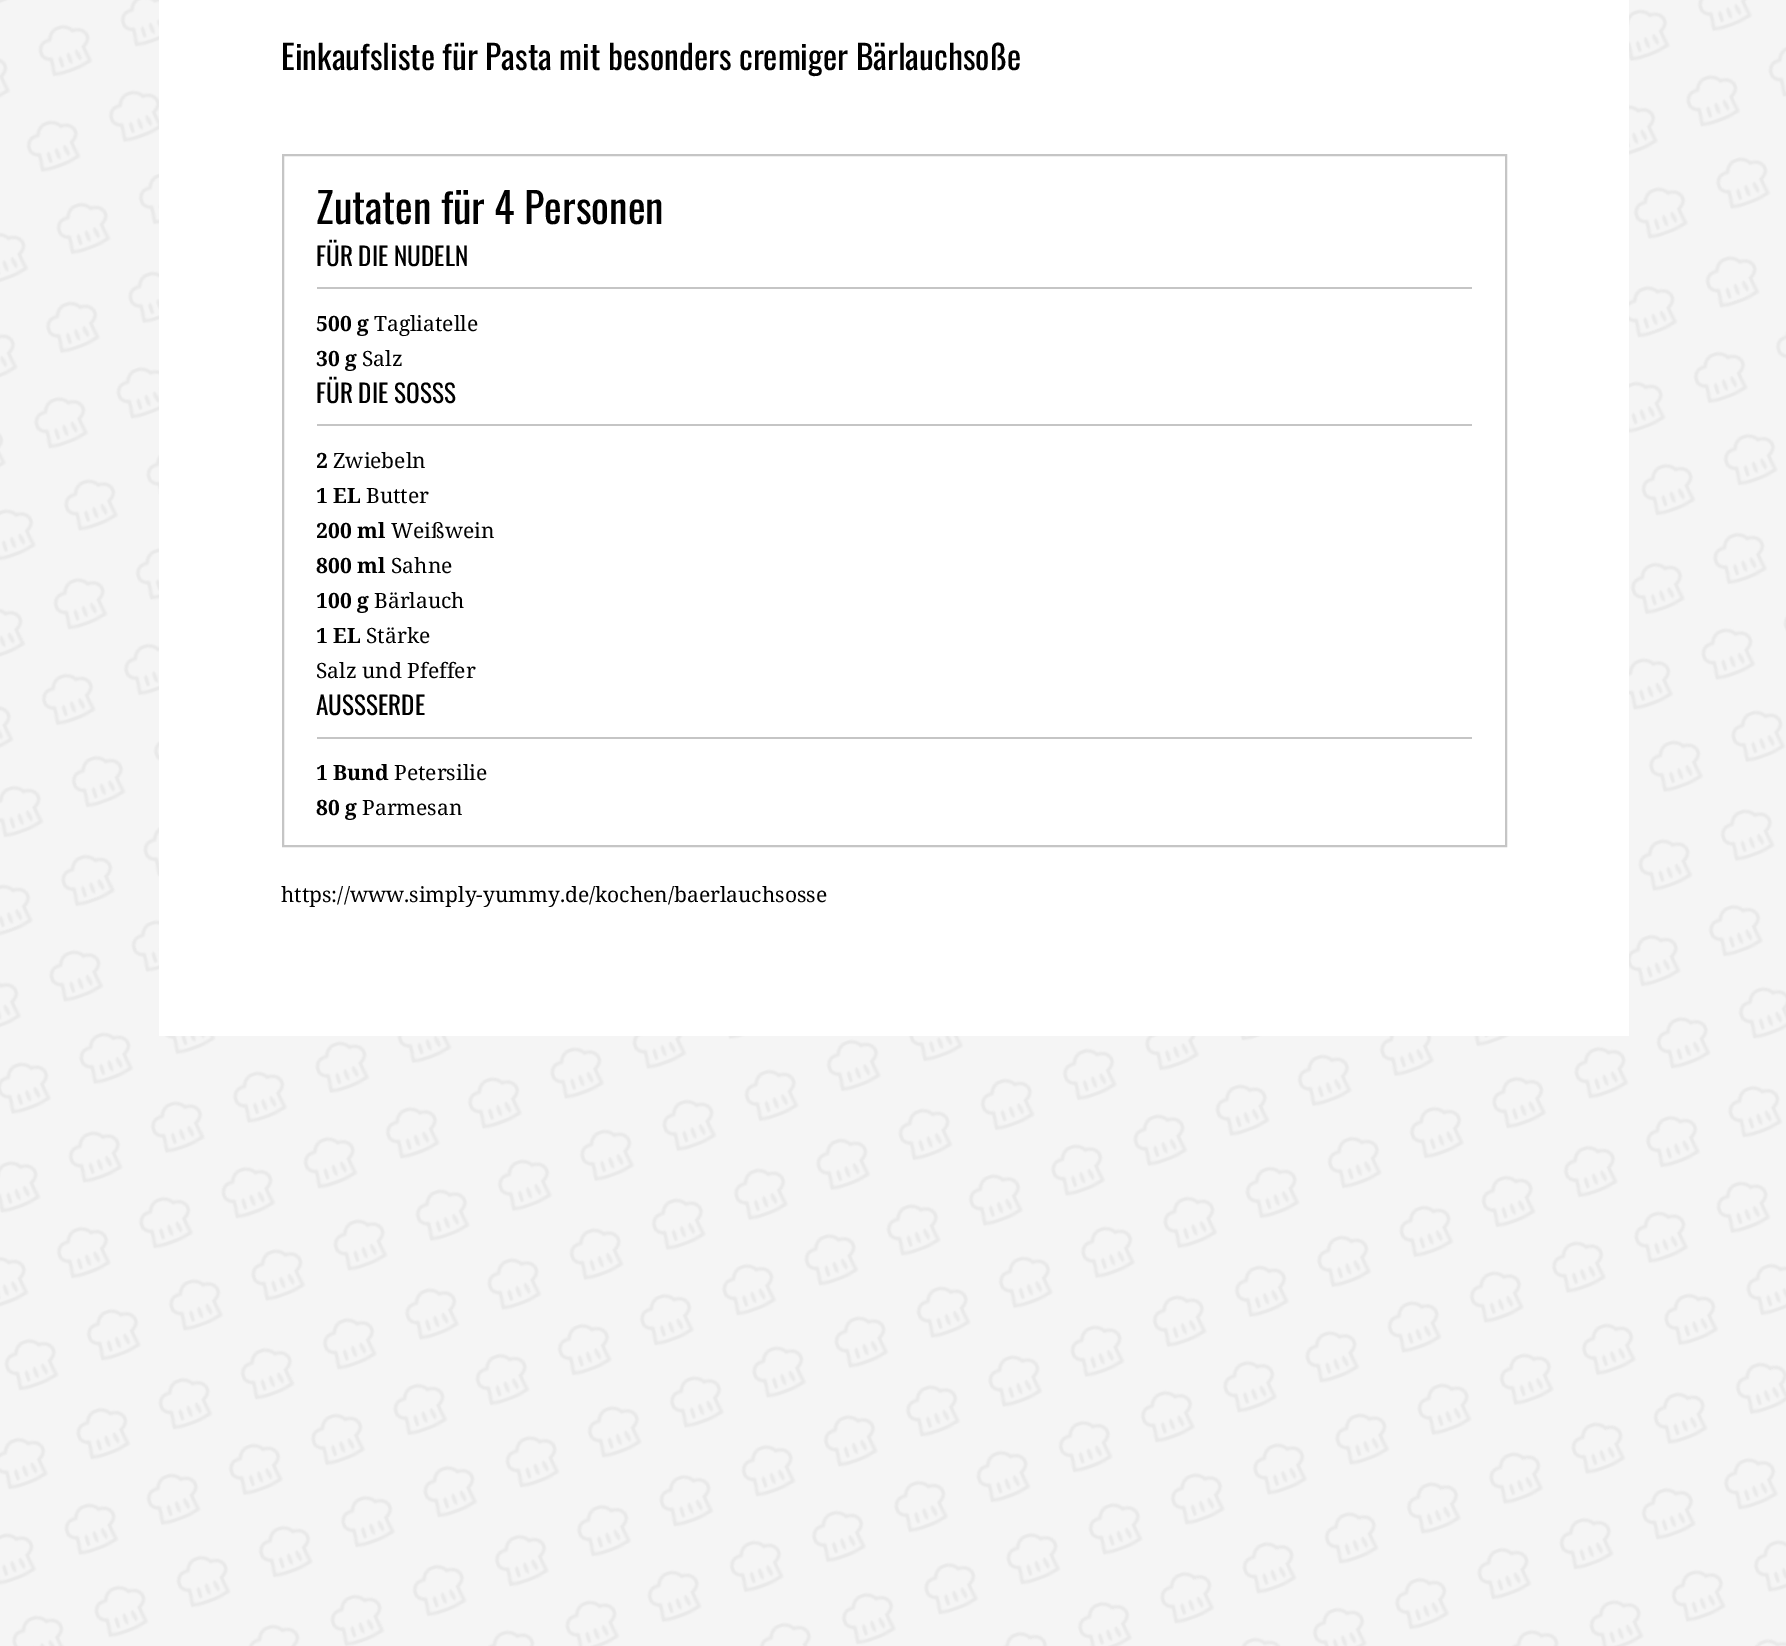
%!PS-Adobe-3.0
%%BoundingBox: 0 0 1786 1646
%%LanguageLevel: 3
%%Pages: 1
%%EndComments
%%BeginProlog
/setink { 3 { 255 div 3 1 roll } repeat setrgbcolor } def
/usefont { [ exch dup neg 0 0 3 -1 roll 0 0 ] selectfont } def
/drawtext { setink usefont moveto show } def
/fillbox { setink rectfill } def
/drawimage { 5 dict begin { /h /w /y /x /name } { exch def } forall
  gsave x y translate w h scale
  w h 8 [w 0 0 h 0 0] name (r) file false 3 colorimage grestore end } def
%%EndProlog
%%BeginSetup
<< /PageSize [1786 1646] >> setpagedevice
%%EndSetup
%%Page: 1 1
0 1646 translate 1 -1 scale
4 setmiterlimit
0 0 1786 1646 245 245 245 fillbox
(assets/img1.rgb) 0 0 1786 1646 drawimage
159 0 1470 1036 255 255 255 fillbox
(Einkaufsliste für Pasta mit besonders cremiger Bärlauchsoße) 281 70 /Oswald-Regular 33.6 0 0 0 drawtext
197 197 197 setink
2 setlinewidth
283 155 1223 691 rectstroke
(Zutaten für 4 Personen) 316 224 /Oswald-Regular 42 0 0 0 drawtext
317 287 1155 2 197 197 197 fillbox
(FÜR DIE NUDELN) 316 266 /Oswald-Regular 25.25 0 0 0 drawtext
(500 g) 316 331 /NotoSerif-Bold 21 0 0 0 drawtext
(Tagliatelle) 374 331 /NotoSerif-Regular 21 0 0 0 drawtext
(30 g) 316 366 /NotoSerif-Bold 21 0 0 0 drawtext
(Salz) 362 366 /NotoSerif-Regular 21 0 0 0 drawtext
317 424 1155 2 197 197 197 fillbox
(FÜR DIE SOSSS) 316 403 /Oswald-Regular 25.25 0 0 0 drawtext
(2) 316 468 /NotoSerif-Bold 21 0 0 0 drawtext
(Zwiebeln) 333 468 /NotoSerif-Regular 21 0 0 0 drawtext
(1 EL) 316 503 /NotoSerif-Bold 21 0 0 0 drawtext
(Butter) 366 503 /NotoSerif-Regular 21 0 0 0 drawtext
(200 ml) 316 538 /NotoSerif-Bold 21 0 0 0 drawtext
(Weißwein) 391 538 /NotoSerif-Regular 21 0 0 0 drawtext
(800 ml) 316 573 /NotoSerif-Bold 21 0 0 0 drawtext
(Sahne) 391 573 /NotoSerif-Regular 21 0 0 0 drawtext
(100 g) 316 608 /NotoSerif-Bold 21 0 0 0 drawtext
(Bärlauch) 374 608 /NotoSerif-Regular 21 0 0 0 drawtext
(1 EL) 316 643 /NotoSerif-Bold 21 0 0 0 drawtext
(Stärke) 366 643 /NotoSerif-Regular 21 0 0 0 drawtext
(Salz und Pfeffer) 316 678 /NotoSerif-Regular 21 0 0 0 drawtext
317 737 1155 2 197 197 197 fillbox
(AUSSSERDE) 316 715 /Oswald-Regular 25.25 0 0 0 drawtext
(1 Bund) 316 780 /NotoSerif-Bold 21 0 0 0 drawtext
(Petersilie) 394 780 /NotoSerif-Regular 21 0 0 0 drawtext
(80 g) 316 815 /NotoSerif-Bold 21 0 0 0 drawtext
(Parmesan) 362 815 /NotoSerif-Regular 21 0 0 0 drawtext
(https://www.simply-yummy.de/kochen/baerlauchsosse) 281 902 /NotoSerif-Regular 21 0 0 0 drawtext
showpage
%%EOF
